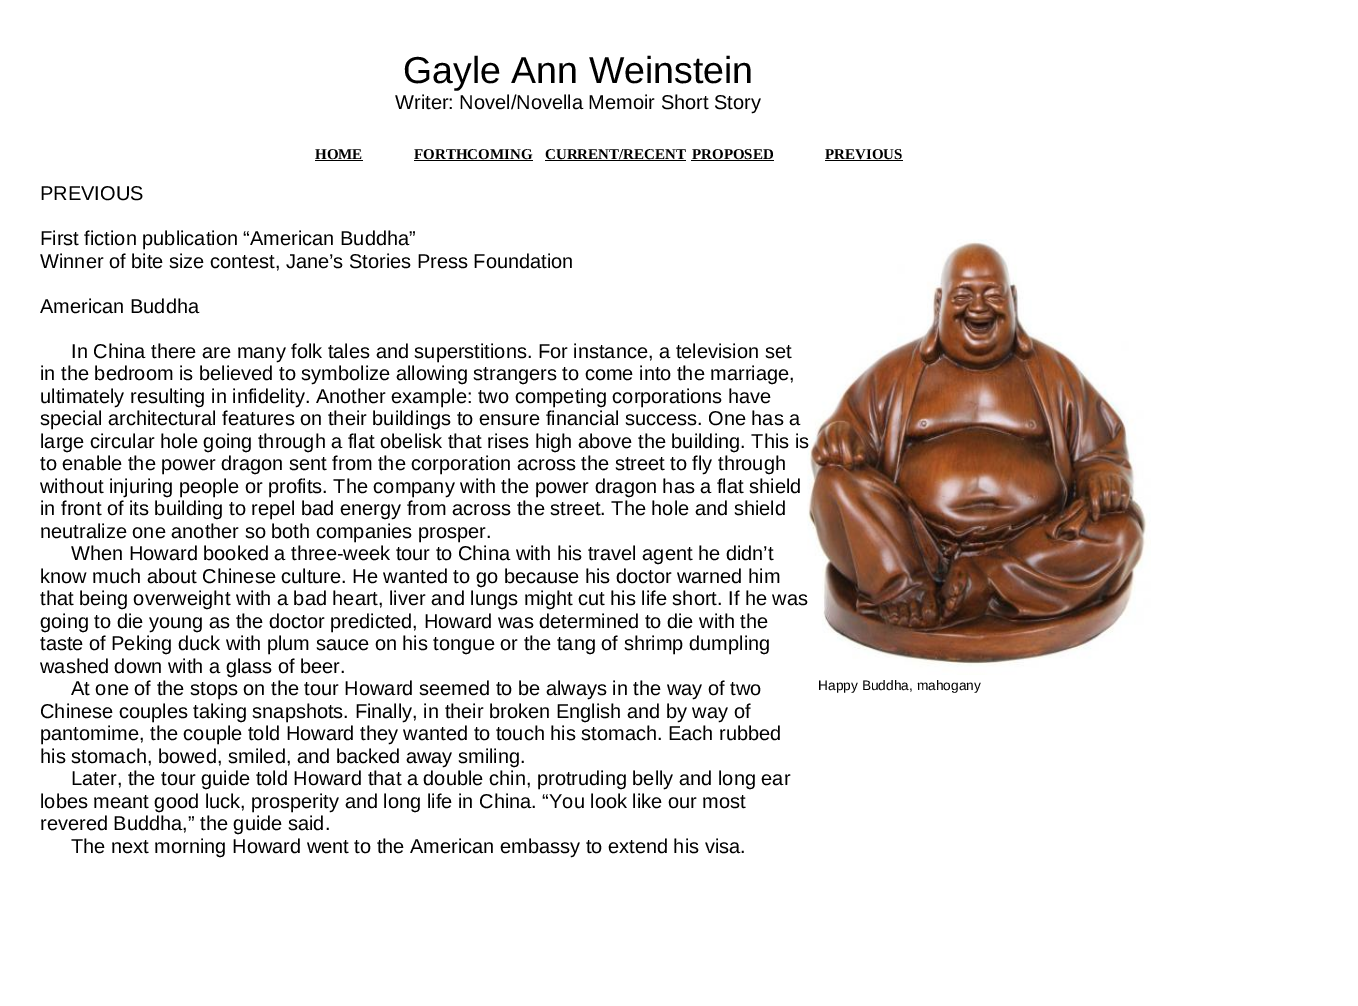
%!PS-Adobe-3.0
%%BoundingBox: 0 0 1358 1006
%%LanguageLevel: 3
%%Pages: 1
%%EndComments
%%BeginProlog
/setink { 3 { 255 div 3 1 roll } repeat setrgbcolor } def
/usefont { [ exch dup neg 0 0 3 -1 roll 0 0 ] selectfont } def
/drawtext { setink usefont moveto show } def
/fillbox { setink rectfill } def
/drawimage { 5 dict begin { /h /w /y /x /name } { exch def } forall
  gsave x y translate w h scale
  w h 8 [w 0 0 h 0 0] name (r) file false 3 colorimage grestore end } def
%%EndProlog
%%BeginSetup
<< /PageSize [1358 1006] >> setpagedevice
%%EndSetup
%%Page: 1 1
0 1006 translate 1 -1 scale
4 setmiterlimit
0 0 1358 1006 255 255 255 fillbox
(Gayle Ann Weinstein) 403 83 /LiberationSans-Regular 37.5 0 0 0 drawtext
(Writer: Novel/Novella Memoir Short Story) 395 109 /LiberationSans-Regular 20 0 0 0 drawtext
(HOME) 315 159 /LiberationSerif-Bold 15 0 0 0 drawtext
315 160 48 1 0 0 0 fillbox
(FORTHCOMING) 414 159 /LiberationSerif-Bold 15 0 0 0 drawtext
414 160 119 1 0 0 0 fillbox
(CURRENT/RECENT) 545 159 /LiberationSerif-Bold 15 0 0 0 drawtext
545 160 141 1 0 0 0 fillbox
(PROPOSED) 692 159 /LiberationSerif-Bold 15 0 0 0 drawtext
691 160 83 1 0 0 0 fillbox
(PREVIOUS) 825 159 /LiberationSerif-Bold 15 0 0 0 drawtext
825 160 78 1 0 0 0 fillbox
(PREVIOUS) 40 200 /LiberationSans-Regular 20 0 0 0 drawtext
(First fiction publication “American Buddha”) 40 245 /LiberationSans-Regular 20 0 0 0 drawtext
(Winner of bite size contest, Jane’s Stories Press Foundation) 40 268 /LiberationSans-Regular 20 0 0 0 drawtext
(American Buddha) 40 313 /LiberationSans-Regular 20 0 0 0 drawtext
(In China there are many folk tales and superstitions. For instance, a television set) 71 358 /LiberationSans-Regular 20 0 0 0 drawtext
(in the bedroom is believed to symbolize allowing strangers to come into the marriage,) 40 380 /LiberationSans-Regular 20 0 0 0 drawtext
(ultimately resulting in infidelity. Another example: two competing corporations have) 40 403 /LiberationSans-Regular 20 0 0 0 drawtext
(special architectural features on their buildings to ensure financial success. One has a) 40 425 /LiberationSans-Regular 20 0 0 0 drawtext
(assets/img1.rgb) 807 239 344 436 drawimage
(large circular hole going through a flat obelisk that rises high above the building. This is) 40 448 /LiberationSans-Regular 20 0 0 0 drawtext
(to enable the power dragon sent from the corporation across the street to fly through) 40 470 /LiberationSans-Regular 20 0 0 0 drawtext
(without injuring people or profits. The company with the power dragon has a flat shield) 40 493 /LiberationSans-Regular 20 0 0 0 drawtext
(in front of its building to repel bad energy from across the street. The hole and shield) 40 515 /LiberationSans-Regular 20 0 0 0 drawtext
(neutralize one another so both companies prosper.) 40 538 /LiberationSans-Regular 20 0 0 0 drawtext
(When Howard booked a three-week tour to China with his travel agent he didn’t) 71 560 /LiberationSans-Regular 20 0 0 0 drawtext
(know much about Chinese culture. He wanted to go because his doctor warned him) 40 583 /LiberationSans-Regular 20 0 0 0 drawtext
(that being overweight with a bad heart, liver and lungs might cut his life short. If he was) 40 605 /LiberationSans-Regular 20 0 0 0 drawtext
(going to die young as the doctor predicted, Howard was determined to die with the) 40 628 /LiberationSans-Regular 20 0 0 0 drawtext
(taste of Peking duck with plum sauce on his tongue or the tang of shrimp dumpling) 40 650 /LiberationSans-Regular 20 0 0 0 drawtext
(washed down with a glass of beer.) 40 673 /LiberationSans-Regular 20 0 0 0 drawtext
(At one of the stops on the tour Howard seemed to be always in the way of two) 71 695 /LiberationSans-Regular 20 0 0 0 drawtext
(Chinese couples taking snapshots. Finally, in their broken English and by way of) 40 718 /LiberationSans-Regular 20 0 0 0 drawtext
(pantomime, the couple told Howard they wanted to touch his stomach. Each rubbed) 40 740 /LiberationSans-Regular 20 0 0 0 drawtext
(his stomach, bowed, smiled, and backed away smiling.) 40 763 /LiberationSans-Regular 20 0 0 0 drawtext
(Later, the tour guide told Howard that a double chin, protruding belly and long ear) 71 785 /LiberationSans-Regular 20 0 0 0 drawtext
(lobes meant good luck, prosperity and long life in China. “You look like our most) 40 808 /LiberationSans-Regular 20 0 0 0 drawtext
(revered Buddha,” the guide said.) 40 830 /LiberationSans-Regular 20 0 0 0 drawtext
(The next morning Howard went to the American embassy to extend his visa.) 71 853 /LiberationSans-Regular 20 0 0 0 drawtext
(Happy Buddha, mahogany) 818 690 /LiberationSans-Regular 13.75 0 0 0 drawtext
showpage
%%EOF
